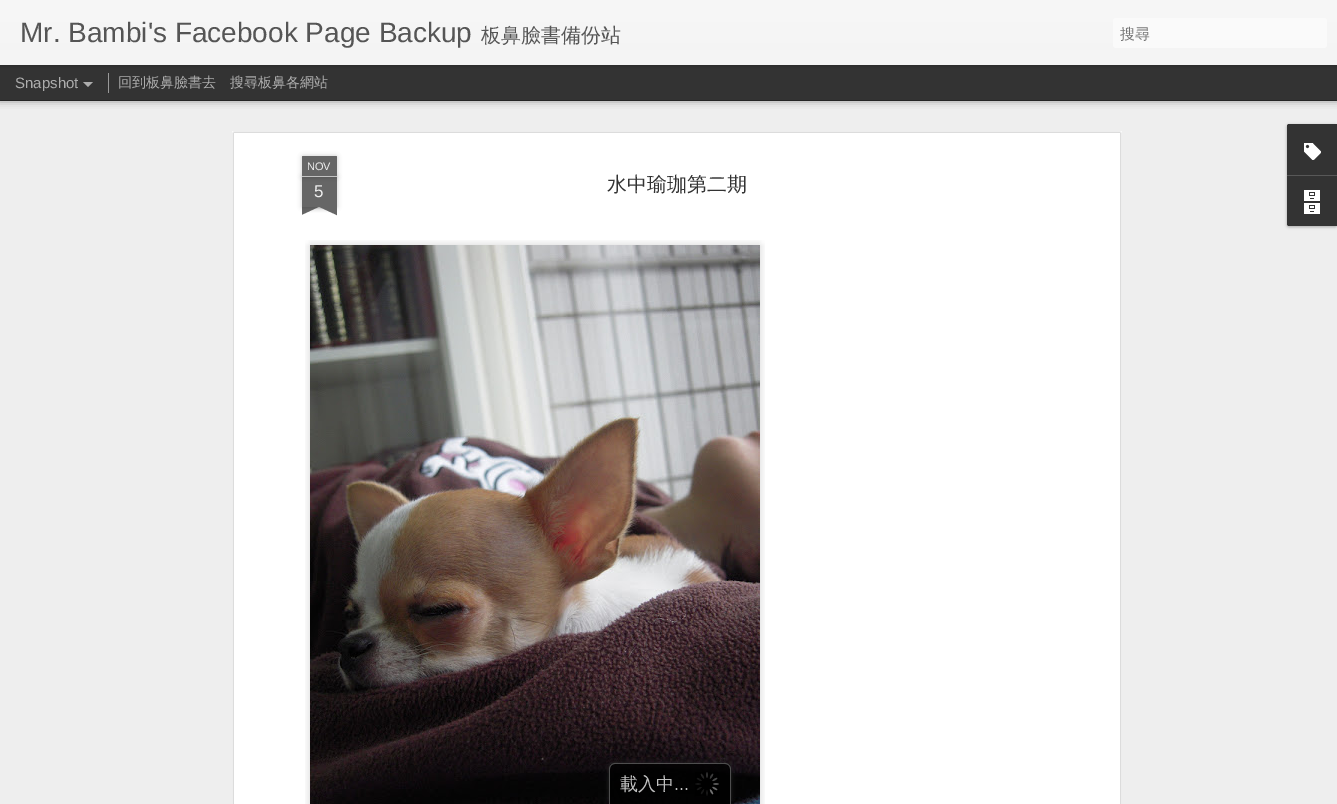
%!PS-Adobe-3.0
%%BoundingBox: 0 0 1337 804
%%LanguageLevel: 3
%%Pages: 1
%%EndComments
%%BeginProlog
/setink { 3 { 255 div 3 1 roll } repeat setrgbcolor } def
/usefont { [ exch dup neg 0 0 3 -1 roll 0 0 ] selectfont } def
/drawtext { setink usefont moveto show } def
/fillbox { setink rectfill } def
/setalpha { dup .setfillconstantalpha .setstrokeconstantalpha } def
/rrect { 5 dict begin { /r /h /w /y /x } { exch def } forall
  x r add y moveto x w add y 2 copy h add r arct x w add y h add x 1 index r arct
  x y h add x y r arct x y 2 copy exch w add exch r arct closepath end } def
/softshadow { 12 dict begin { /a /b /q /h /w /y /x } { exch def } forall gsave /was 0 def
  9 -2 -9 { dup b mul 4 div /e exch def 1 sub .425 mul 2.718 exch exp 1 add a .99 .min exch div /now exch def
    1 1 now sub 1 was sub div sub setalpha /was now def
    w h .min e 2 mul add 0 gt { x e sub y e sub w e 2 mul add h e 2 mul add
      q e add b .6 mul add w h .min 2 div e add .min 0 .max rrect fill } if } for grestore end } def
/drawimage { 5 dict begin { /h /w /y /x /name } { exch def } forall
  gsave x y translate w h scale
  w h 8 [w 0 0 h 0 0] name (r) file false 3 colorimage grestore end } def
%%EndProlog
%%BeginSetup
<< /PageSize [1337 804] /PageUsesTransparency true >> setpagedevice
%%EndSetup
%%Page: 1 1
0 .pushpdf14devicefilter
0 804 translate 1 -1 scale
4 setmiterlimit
0 0 1337 804 51 51 51 fillbox
0 101 1337 703 238 238 238 fillbox
0 0 0 setink
0 65 1337 35 0 4 0.5 softshadow
0 65 1337 35 51 51 51 fillbox
108 73 1 20 153 153 153 fillbox
0 0 0 setink
0 0 1337 65 0 2.5 0.3 softshadow
gsave 0 0 moveto 1337 0 lineto 1337 65 lineto 0 65 lineto closepath clip newpath
<< /ShadingType 2 /ColorSpace /DeviceRGB /Coords [0 0 0 65] /Extend [true true] /Function << /FunctionType 2 /Domain [0 1] /C0 [0.969 0.969 0.969] /C1 [0.957 0.957 0.957] /N 1 >> >> shfill grestore
(Mr. Bambi's Facebook Page Backup) 20 42 /LiberationSans-Regular 28 85 85 85 drawtext
(板鼻臉書備份站) 481 42 /WenQuanYiZenHei-Medium 20 85 85 85 drawtext
250 250 250 setink
1113 18 214 30 3 rrect fill
(搜尋) 1120 39 /WenQuanYiZenHei-Medium 15 117 117 117 drawtext
(Snapshot) 15 88 /LiberationSans-Regular 15 173 173 173 drawtext
83 82 moveto 93 82 lineto 88 87 lineto closepath fill
(回到板鼻臉書去) 118 87 /WenQuanYiZenHei-Medium 14 173 173 173 drawtext
(搜尋板鼻各網站) 230 87 /WenQuanYiZenHei-Medium 14 173 173 173 drawtext
232 131 890 673 255 255 255 fillbox
(assets/img1.rgb) 232 131 890 673 drawimage
0 0 0 setink
302 177 35 30 0 2.5 0.2 softshadow
302 177 35 30 102 102 102 fillbox
0 0 0 setink
302 156 35 21 1 2.5 0.2 softshadow
102 102 102 setink
303 156 moveto 336 156 lineto 336.5 156 337 156.5 337 157 curveto 337 177 lineto 302 177 lineto 302 157 lineto 302 156.5 302.5 156 303 156 curveto closepath fill
302 176 35 1 194 194 194 fillbox
(NOV) 307 170 /LiberationSans-Regular 11 238 238 238 drawtext
(5) 314 197 /LiberationSans-Regular 17 238 238 238 drawtext
gsave
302 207 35 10 rectclip
0 0 0 setink
293 197 50 10 0 2.5 0.2 softshadow
grestore
gsave
302 207 35 10 rectclip
102 102 102 setink
293 208 moveto 338 187 lineto 342 196 lineto 297 217 lineto closepath fill
grestore
gsave
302 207 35 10 rectclip
0 0 0 setink
296 197 50 10 0 2.5 0.2 softshadow
grestore
gsave
302 207 35 10 rectclip
102 102 102 setink
300 187 moveto 345 208 lineto 341 217 lineto 296 196 lineto closepath fill
grestore
(水中瑜珈第二期) 607 191 /WenQuanYiZenHei-Medium 20 51 51 51 drawtext
(assets/img2.rgb) 305 240 460 564 drawimage
0 0 0 setink
1287 125 50 102 2 1.5 0.3 softshadow
51 51 51 setink
1289 124 moveto 1337 124 lineto 1337 175 lineto 1287 175 lineto 1287 126 lineto 1287 125 1288 124 1289 124 curveto closepath fill
(assets/img3.rgb) 1304 143 17 17 drawimage
1287 175 moveto 1337 175 lineto 1337 226 lineto 1289 226 lineto 1288 226 1287 225 1287 224 curveto closepath fill
1287 175 50 1 88 88 88 fillbox
(assets/img4.rgb) 1304 190 16 24 drawimage
gsave
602 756 moveto 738 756 lineto 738 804 lineto 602 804 lineto closepath 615 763 moveto 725 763 lineto 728.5 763 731 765.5 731 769 curveto 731 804 lineto 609 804 lineto 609 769 lineto 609 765.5 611.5 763 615 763 curveto closepath eoclip newpath
51 51 51 setink
609 763 122 41 6 2 0.75 softshadow
grestore
0.75 setalpha
0 0 0 setink
615 763 moveto 725 763 lineto 728.5 763 731 765.5 731 769 curveto 731 804 lineto 609 804 lineto 609 769 lineto 609 765.5 611.5 763 615 763 curveto closepath fill
102 102 102 setink
615 763 moveto 725 763 lineto 728 763 731 766 731 769 curveto 731 804 lineto 609 804 lineto 609 769 lineto 609 766 612 763 615 763 curveto closepath 615 764 moveto 725 764 lineto 728 764 730 766 730 769 curveto 730 804 lineto 610 804 lineto 610 769 lineto 610 766 612 764 615 764 curveto closepath eofill
1 setalpha
(assets/img5.rgb) 695 772 24 24 drawimage
(載入中) 620 790 /WenQuanYiZenHei-Medium 18 192 192 192 drawtext
(...) 674 790 /LiberationSans-Regular 18 192 192 192 drawtext
.poppdf14devicefilter showpage
%%EOF
